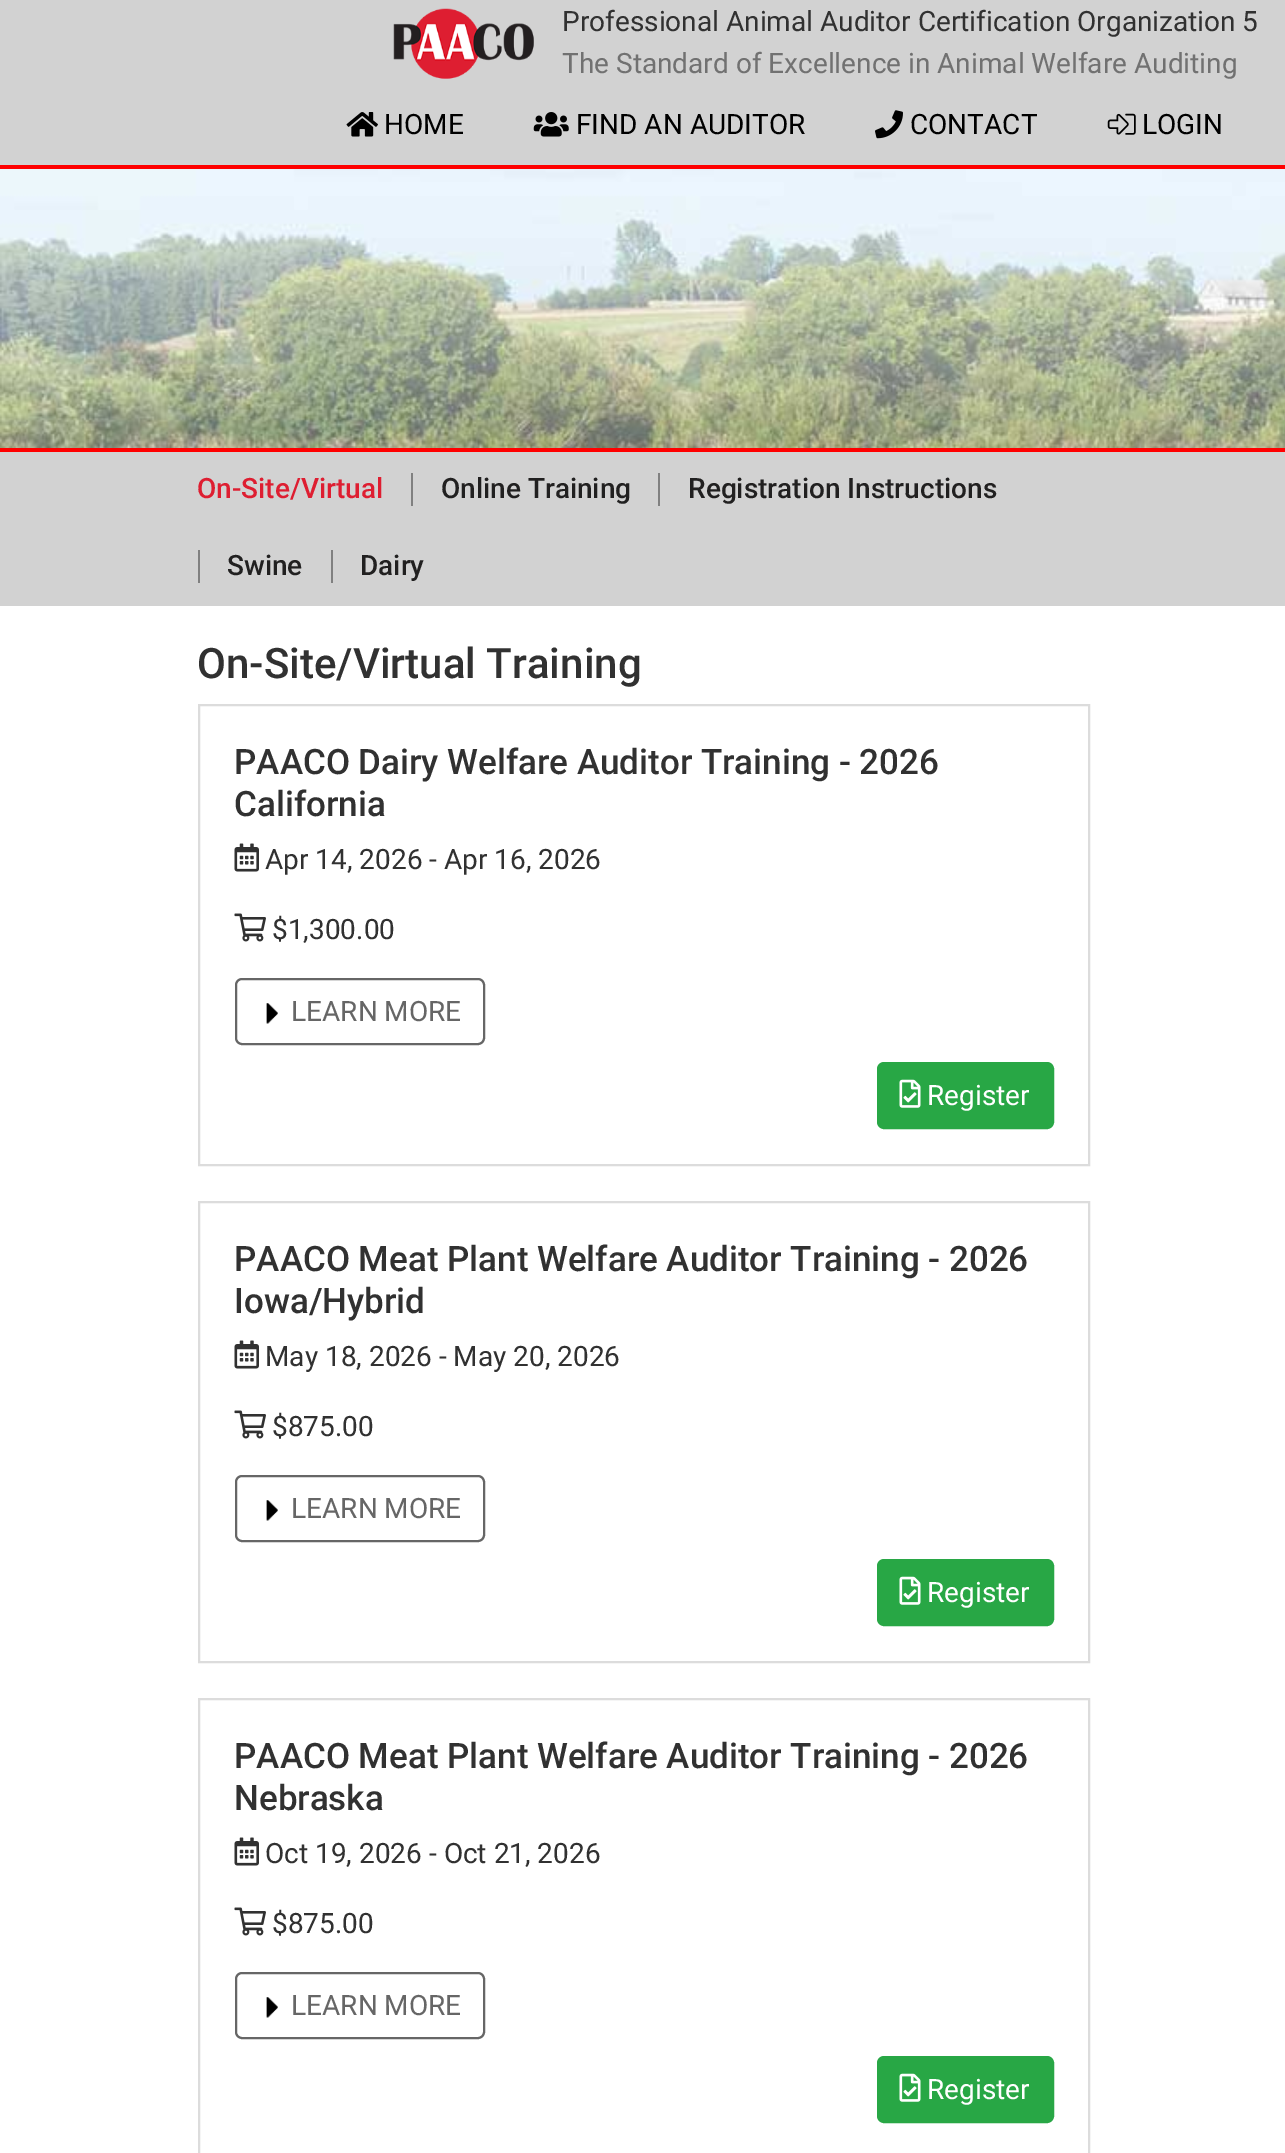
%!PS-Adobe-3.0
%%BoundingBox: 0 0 1285 2153
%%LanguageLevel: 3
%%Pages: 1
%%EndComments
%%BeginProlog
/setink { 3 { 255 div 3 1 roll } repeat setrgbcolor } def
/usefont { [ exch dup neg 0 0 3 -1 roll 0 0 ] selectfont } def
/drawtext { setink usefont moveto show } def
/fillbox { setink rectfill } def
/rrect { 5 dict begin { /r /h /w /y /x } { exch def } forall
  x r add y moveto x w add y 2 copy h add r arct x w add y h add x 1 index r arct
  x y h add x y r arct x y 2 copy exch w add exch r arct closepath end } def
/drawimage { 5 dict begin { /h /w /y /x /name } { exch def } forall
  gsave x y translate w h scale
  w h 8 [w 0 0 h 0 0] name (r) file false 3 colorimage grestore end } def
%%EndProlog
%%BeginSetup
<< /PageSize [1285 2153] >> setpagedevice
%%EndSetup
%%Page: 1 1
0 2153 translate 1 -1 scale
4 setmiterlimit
0 0 1285 2153 255 255 255 fillbox
0 0 1285 165 210 210 210 fillbox
(assets/img1.rgb) 393 8 141 71 drawimage
(Professional Animal Auditor Certification Organization 5) 562 31 /Roboto-Regular 28 49 49 49 drawtext
(The Standard of Excellence in Animal Welfare Auditing) 562 73 /Roboto-Regular 28 113 113 113 drawtext
(assets/img2.rgb) 346 112 32 25 drawimage
(HOME) 384 134 /Roboto-Regular 28 0 0 0 drawtext
(assets/img3.rgb) 533 112 36 25 drawimage
(FIND AN AUDITOR) 576 134 /Roboto-Regular 28 0 0 0 drawtext
(assets/img4.rgb) 875 110 28 29 drawimage
(CONTACT) 910 134 /Roboto-Regular 28 0 0 0 drawtext
(assets/img5.rgb) 1107 113 29 22 drawimage
(LOGIN) 1142 134 /Roboto-Regular 28 0 0 0 drawtext
(assets/img6.rgb) 0 169 1285 279 drawimage
0 165 1285 4 255 0 0 fillbox
0 448 1285 4 255 0 0 fillbox
0 452 1285 154 210 210 210 fillbox
(On-Site/Virtual) 197 498 /Roboto-Medium 28 222 30 49 drawtext
(Online Training) 441 498 /Roboto-Medium 28 33 32 32 drawtext
411 473 2 33 128 128 128 fillbox
(Registration Instructions) 688 498 /Roboto-Medium 28 33 32 32 drawtext
658 473 2 33 128 128 128 fillbox
(Swine) 227 575 /Roboto-Medium 28 33 32 32 drawtext
198 550 2 33 128 128 128 fillbox
(Dairy) 360 575 /Roboto-Medium 28 33 32 32 drawtext
331 550 2 33 128 128 128 fillbox
(On-Site/Virtual Training) 197 678 /Roboto-Medium 42 49 49 49 drawtext
220 220 220 setink
2 setlinewidth
199 705 890 460 rectstroke
(PAACO Dairy Welfare Auditor Training - 2026) 234 774 /Roboto-Medium 35 49 49 49 drawtext
(California) 234 816 /Roboto-Medium 35 49 49 49 drawtext
(assets/img7.rgb) 234 843 25 29 drawimage
(Apr 14, 2026 - Apr 16, 2026) 265 869 /Roboto-Regular 28 49 49 49 drawtext
(assets/img8.rgb) 234 913 32 29 drawimage
($1,300.00) 272 939 /Roboto-Regular 28 49 49 49 drawtext
102 102 102 setink
236 979 248 65 6 rrect stroke
(assets/img9.rgb) 266 1003 12 21 drawimage
(LEARN MORE) 291 1021 /Roboto-Regular 28 102 102 102 drawtext
40 167 69 setink
878 1063 175 65 6 rrect gsave fill grestore
stroke
(assets/img10.rgb) 899 1079 22 29 drawimage
(Register) 927 1105 /Roboto-Regular 28 255 255 255 drawtext
220 220 220 setink
199 1202 890 460 rectstroke
(PAACO Meat Plant Welfare Auditor Training - 2026) 234 1271 /Roboto-Medium 35 49 49 49 drawtext
(Iowa/Hybrid) 234 1313 /Roboto-Medium 35 49 49 49 drawtext
(assets/img7.rgb) 234 1340 25 29 drawimage
(May 18, 2026 - May 20, 2026) 265 1366 /Roboto-Regular 28 49 49 49 drawtext
(assets/img8.rgb) 234 1410 32 29 drawimage
($875.00) 272 1436 /Roboto-Regular 28 49 49 49 drawtext
102 102 102 setink
236 1476 248 65 6 rrect stroke
(assets/img11.rgb) 266 1500 12 21 drawimage
(LEARN MORE) 291 1518 /Roboto-Regular 28 102 102 102 drawtext
40 167 69 setink
878 1560 175 65 6 rrect gsave fill grestore
stroke
(assets/img10.rgb) 899 1576 22 29 drawimage
(Register) 927 1602 /Roboto-Regular 28 255 255 255 drawtext
220 220 220 setink
199 1699 890 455 rectstroke
(PAACO Meat Plant Welfare Auditor Training - 2026) 234 1768 /Roboto-Medium 35 49 49 49 drawtext
(Nebraska) 234 1810 /Roboto-Medium 35 49 49 49 drawtext
(assets/img7.rgb) 234 1837 25 29 drawimage
(Oct 19, 2026 - Oct 21, 2026) 265 1863 /Roboto-Regular 28 49 49 49 drawtext
(assets/img8.rgb) 234 1907 32 29 drawimage
($875.00) 272 1933 /Roboto-Regular 28 49 49 49 drawtext
102 102 102 setink
236 1973 248 65 6 rrect stroke
(assets/img12.rgb) 266 1997 12 21 drawimage
(LEARN MORE) 291 2015 /Roboto-Regular 28 102 102 102 drawtext
40 167 69 setink
878 2057 175 65 6 rrect gsave fill grestore
stroke
(assets/img10.rgb) 899 2073 22 29 drawimage
(Register) 927 2099 /Roboto-Regular 28 255 255 255 drawtext
showpage
%%EOF
